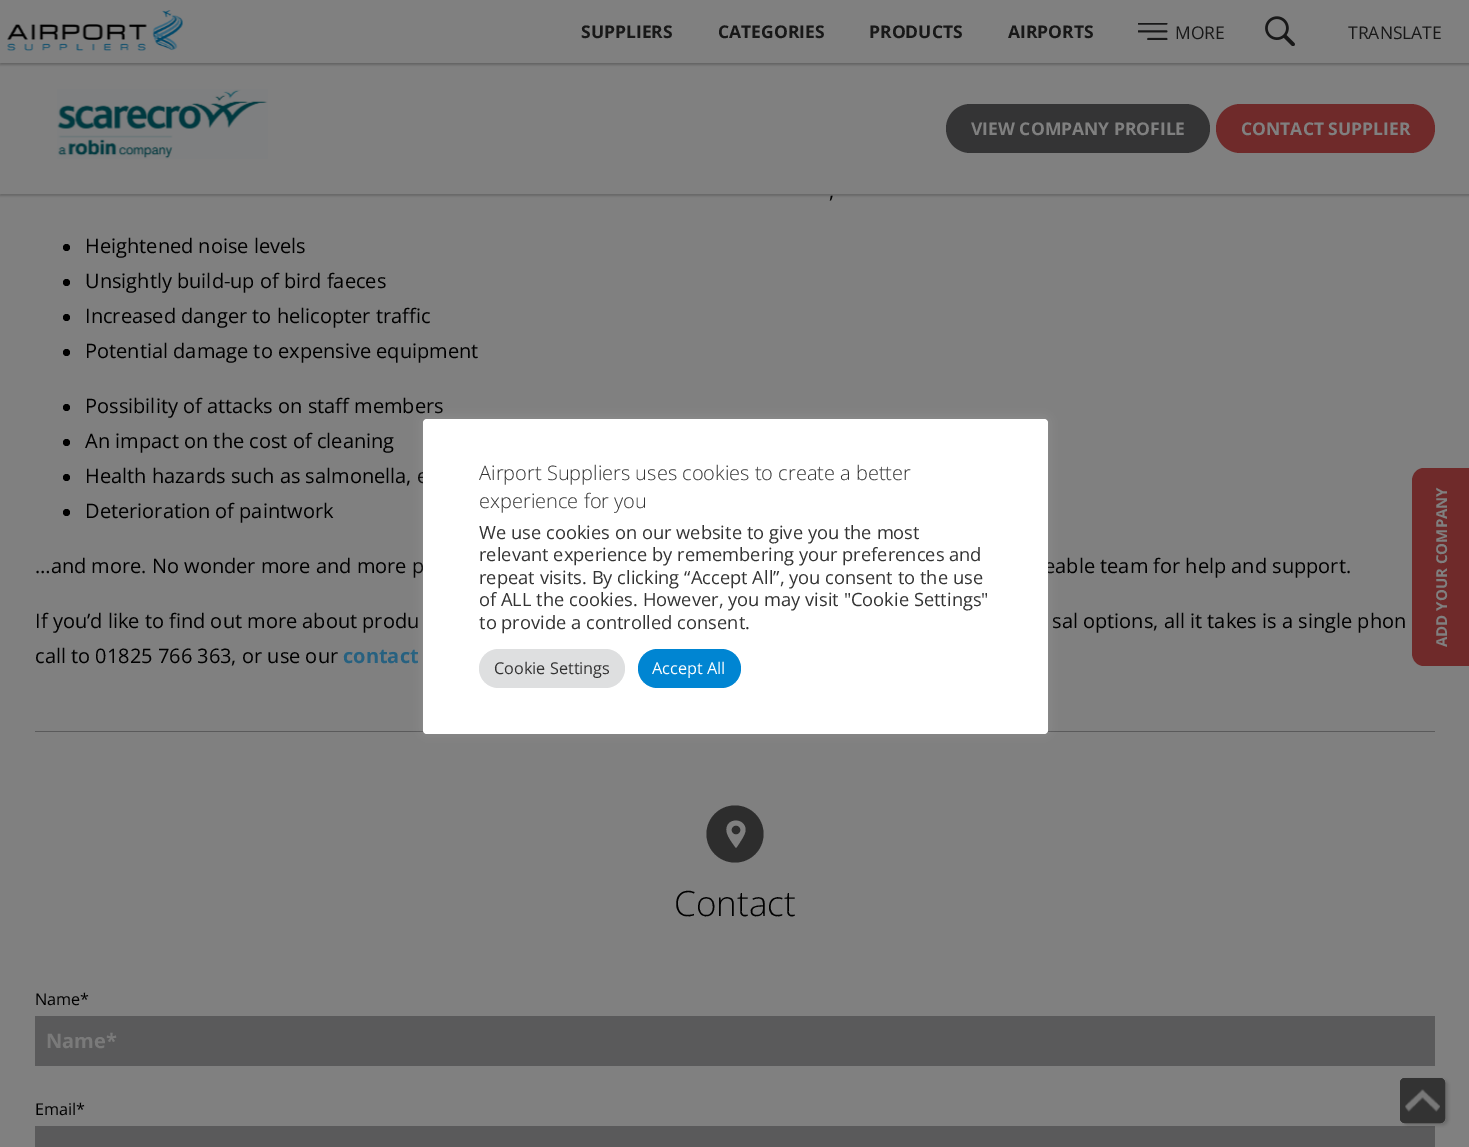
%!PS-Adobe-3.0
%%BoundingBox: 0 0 1469 1147
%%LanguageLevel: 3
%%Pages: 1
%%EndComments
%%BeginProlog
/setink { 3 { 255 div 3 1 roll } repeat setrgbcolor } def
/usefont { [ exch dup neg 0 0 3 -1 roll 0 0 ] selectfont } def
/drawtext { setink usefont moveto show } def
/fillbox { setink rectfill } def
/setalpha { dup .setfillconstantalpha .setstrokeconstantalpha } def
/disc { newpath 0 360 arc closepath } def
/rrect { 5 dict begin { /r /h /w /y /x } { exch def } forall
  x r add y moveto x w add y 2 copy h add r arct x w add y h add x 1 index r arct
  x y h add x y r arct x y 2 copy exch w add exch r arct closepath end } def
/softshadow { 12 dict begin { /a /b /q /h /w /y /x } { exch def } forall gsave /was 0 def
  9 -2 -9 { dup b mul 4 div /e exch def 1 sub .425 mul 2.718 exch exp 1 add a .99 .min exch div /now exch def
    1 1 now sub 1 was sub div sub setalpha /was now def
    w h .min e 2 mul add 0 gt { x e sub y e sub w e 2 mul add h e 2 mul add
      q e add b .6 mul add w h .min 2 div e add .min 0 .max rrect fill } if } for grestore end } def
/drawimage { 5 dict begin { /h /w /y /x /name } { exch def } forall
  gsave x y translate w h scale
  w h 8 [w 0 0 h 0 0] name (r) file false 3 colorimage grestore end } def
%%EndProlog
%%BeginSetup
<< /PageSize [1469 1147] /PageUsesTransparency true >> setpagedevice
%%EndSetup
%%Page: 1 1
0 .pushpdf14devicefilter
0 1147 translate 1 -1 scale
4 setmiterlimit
0 0 1469 1147 128 128 128 fillbox
34 34 34 setink
0 65 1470 131 0 1 0.25 softshadow
0 64 1469 130 128 128 128 fillbox
gsave
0 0 moveto 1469 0 lineto 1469 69 lineto 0 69 lineto closepath 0 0 moveto 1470 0 lineto 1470 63 lineto 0 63 lineto closepath eoclip newpath
24 24 24 setink
0 3 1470 62 0 1 0.25 softshadow
grestore
(assets/img1.rgb) 7 10 176 41 drawimage
(SUPPLIERS) 581 38 /OpenSans-Bold 17.5 24 24 24 drawtext
(CATEGORIES) 718 38 /OpenSans-Bold 17.5 24 24 24 drawtext
(PRODUCTS) 869 38 /OpenSans-Bold 17.5 24 24 24 drawtext
(AIRPORTS) 1008 38 /OpenSans-Bold 17.5 24 24 24 drawtext
(assets/img2.rgb) 1138 23 30 17 drawimage
(MORE) 1175 39 /OpenSans-Regular 17.5 24 24 24 drawtext
(assets/img3.rgb) 1265 16 30 30 drawimage
(TRANSLATE) 1348 39 /OpenSans-Regular 17.5 24 24 24 drawtext
(assets/img4.rgb) 57 89 211 70 drawimage
52 52 53 setink
946 104 264 49 24.5 rrect fill
(VIEW COMPANY PROFILE) 971 135 /OpenSans-Bold 17.5 128 128 128 drawtext
111 42 42 setink
1216 104 219 49 24.5 rrect fill
(CONTACT SUPPLIER) 1241 135 /OpenSans-Bold 17.5 128 128 128 drawtext
(,) 829 198 /OpenSans-Regular 20 0 0 0 drawtext
66.5 247.5 3.5 disc fill
(Heightened noise levels) 85 253 /OpenSans-Regular 20 0 0 0 drawtext
66.5 282.5 3.5 disc fill
(Unsightly build-up of bird faeces) 85 288 /OpenSans-Regular 20 0 0 0 drawtext
66.5 317.5 3.5 disc fill
(Increased danger to helicopter traffic) 85 323 /OpenSans-Regular 20 0 0 0 drawtext
66.5 352.5 3.5 disc fill
(Potential damage to expensive equipment) 85 358 /OpenSans-Regular 20 0 0 0 drawtext
66.5 407.5 3.5 disc fill
(Possibility of attacks on staff members) 85 413 /OpenSans-Regular 20 0 0 0 drawtext
66.5 442.5 3.5 disc fill
(An impact on the cost of cleaning) 85 448 /OpenSans-Regular 20 0 0 0 drawtext
66.5 477.5 3.5 disc fill
(Health hazards such as salmonella, e) 85 483 /OpenSans-Regular 20 0 0 0 drawtext
66.5 512.5 3.5 disc fill
(Deterioration of paintwork) 85 518 /OpenSans-Regular 20 0 0 0 drawtext
(…and more. No wonder more and more p) 35 573 /OpenSans-Regular 20 0 0 0 drawtext
(eable team for help and support.) 1044 573 /OpenSans-Regular 20 0 0 0 drawtext
(If you’d like to find out more about produ) 35 628 /OpenSans-Regular 20 0 0 0 drawtext
(sal options, all it takes is a single phon) 1052 628 /OpenSans-Regular 20 0 0 0 drawtext
(call to 01825 766 363, or use our) 35 663 /OpenSans-Regular 20 0 0 0 drawtext
(contact) 343 663 /OpenSans-Bold 20 39 97 128 drawtext
35 731 1400 1 90 90 91 fillbox
45 45 45 setink
735 834 28.5 disc fill
128 128 128 setink
745.5 830 moveto 745.5 817.5 726 817.5 726.5 830 curveto 726.5 835.5 731.5 841.5 734.5 846 curveto 736 848 lineto 737.5 846 lineto 740 842 745.5 834.5 745.5 830 curveto closepath 731.5 830 moveto 731.5 824 740.5 824 740.5 830 curveto 740.5 836 731.5 836 731.5 830 curveto closepath fill
(Contact) 674 916 /OpenSans-Light 35 0 0 0 drawtext
(Name*) 35 1005 /OpenSans-Regular 16.25 0 0 0 drawtext
35 1016 1400 50 90 90 91 fillbox
(Name*) 46 1048 /OpenSans-Bold 20 122 122 122 drawtext
(Email*) 35 1115 /OpenSans-Regular 16.25 0 0 0 drawtext
35 1126 1400 21 90 90 91 fillbox
172 171 171 setink
423 418 625 315 4 6 0.3 softshadow
255 255 255 setink
423 419 625 315 4 rrect fill
(Airport Suppliers uses cookies to create a better) 479 480 /OpenSans-Light 20 51 51 51 drawtext
(experience for you) 479 508 /OpenSans-Light 20 51 51 51 drawtext
(We use cookies on our website to give you the most) 479 539 /OpenSans-Regular 18.3 51 51 51 drawtext
(relevant experience by remembering your preferences and) 479 561 /OpenSans-Regular 18.3 51 51 51 drawtext
(repeat visits. By clicking “Accept All”, you consent to the use) 479 584 /OpenSans-Regular 18.3 51 51 51 drawtext
(of ALL the cookies. However, you may visit "Cookie Settings") 479 606 /OpenSans-Regular 18.3 51 51 51 drawtext
(to provide a controlled consent.) 479 629 /OpenSans-Regular 18.3 51 51 51 drawtext
222 223 224 setink
479 649 146 39 19.5 rrect fill
(Cookie Settings) 494 674 /OpenSans-Regular 16.25 51 51 51 drawtext
0 133 210 setink
638 649 103 39 19.5 rrect fill
(Accept All) 652 674 /OpenSans-Regular 16.25 255 255 255 drawtext
111 42 42 setink
1412 653 moveto 1412 481 lineto 1412 474 1417 468 1424 468 curveto 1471 468 lineto 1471 666 lineto 1424 666 lineto 1417 666 1412 660 1412 653 curveto closepath fill
/OpenSans-Bold 15 usefont
128 128 128 setink
gsave 1447 647 translate -90 rotate 0 0 moveto (ADD YOUR COMPANY) show grestore
5 5 5 setink
1403 1080 45 45 5 2 0.18 softshadow
51 51 51 setink
1400 1078 45 45 5 rrect fill
(assets/img5.rgb) 1405 1089 35 23 drawimage
5 setlinewidth
1402.5 1080.5 40 40 2.5 rrect stroke
.poppdf14devicefilter showpage
%%EOF
